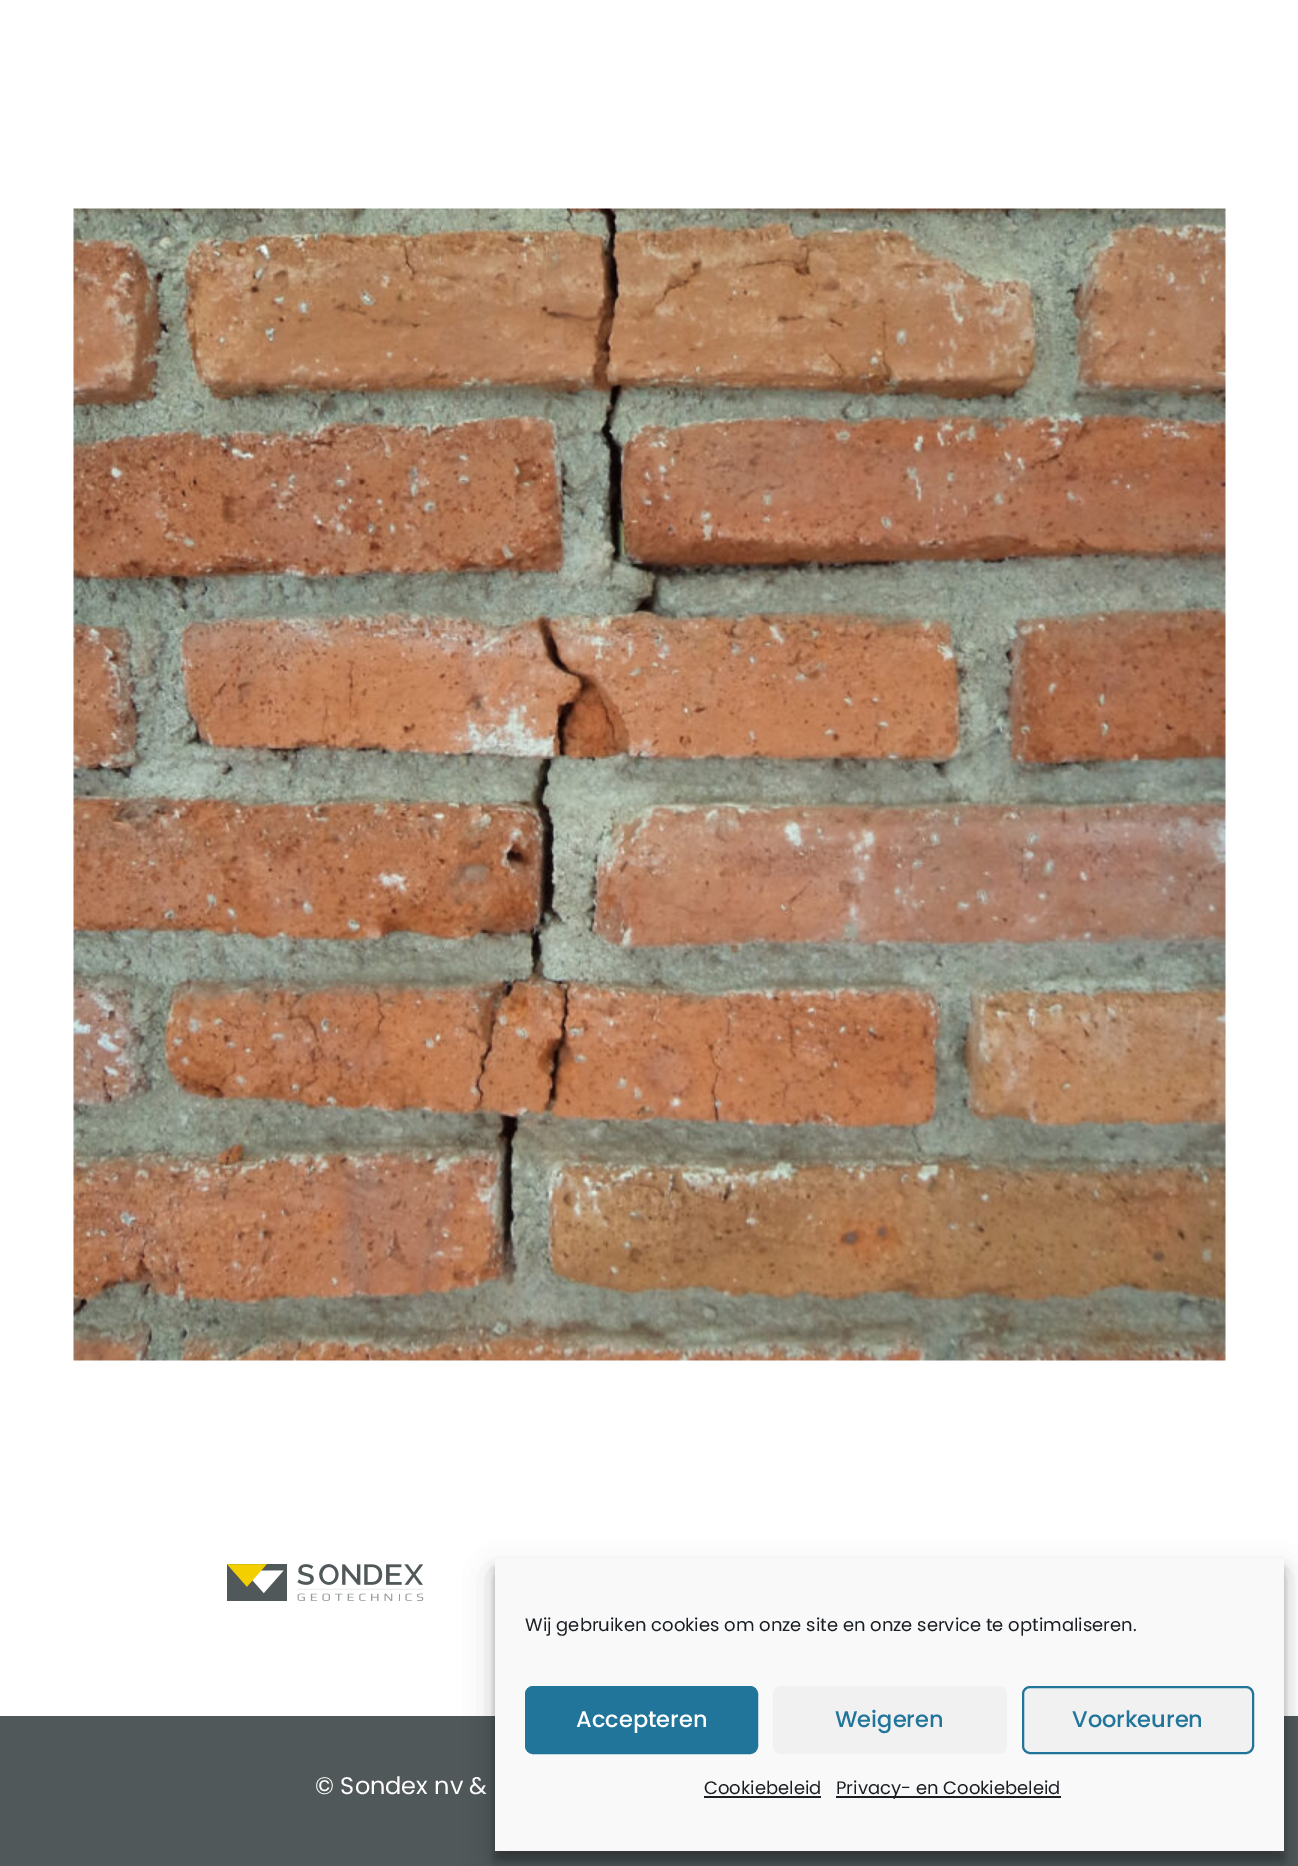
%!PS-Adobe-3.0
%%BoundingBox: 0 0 1298 1866
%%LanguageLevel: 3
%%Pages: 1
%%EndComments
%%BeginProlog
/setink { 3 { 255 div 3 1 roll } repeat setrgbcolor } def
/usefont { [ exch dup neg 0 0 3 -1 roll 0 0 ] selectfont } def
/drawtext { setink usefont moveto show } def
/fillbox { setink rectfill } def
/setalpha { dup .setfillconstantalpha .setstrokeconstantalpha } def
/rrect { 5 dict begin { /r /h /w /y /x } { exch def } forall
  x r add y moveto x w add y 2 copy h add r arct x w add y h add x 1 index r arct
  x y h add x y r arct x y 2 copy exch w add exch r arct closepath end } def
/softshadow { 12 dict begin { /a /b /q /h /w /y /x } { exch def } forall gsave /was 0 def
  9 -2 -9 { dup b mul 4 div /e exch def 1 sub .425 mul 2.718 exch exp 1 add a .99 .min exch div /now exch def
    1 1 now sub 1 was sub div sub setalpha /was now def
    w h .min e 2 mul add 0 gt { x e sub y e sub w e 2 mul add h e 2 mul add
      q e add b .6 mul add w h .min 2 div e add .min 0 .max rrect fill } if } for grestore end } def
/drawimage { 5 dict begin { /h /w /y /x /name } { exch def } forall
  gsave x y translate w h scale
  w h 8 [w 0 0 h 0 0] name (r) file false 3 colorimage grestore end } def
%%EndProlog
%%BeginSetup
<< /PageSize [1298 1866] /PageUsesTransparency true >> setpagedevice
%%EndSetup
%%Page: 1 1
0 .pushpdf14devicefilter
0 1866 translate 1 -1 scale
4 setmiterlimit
0 0 1298 1866 255 255 255 fillbox
(assets/img1.rgb) 73 208 1153 1153 drawimage
(assets/img2.rgb) 227 1564 197 37 drawimage
0 1716 1298 150 81 88 89 fillbox
(© Sondex nv &) 315 1794 /Poppins-Regular 24 255 255 255 drawtext
0 0 0 setink
495 1568 789 292 0 4.5 0.23 softshadow
495 1574 789 292 0 15 0.19 softshadow
495 1559 789 292 249 249 249 fillbox
(Wij gebruiken cookies om onze site en onze service te optimaliseren.) 525 1631 /Poppins-Regular 18 25 30 35 drawtext
33 117 155 setink
526 1687 231 66 7 rrect gsave fill grestore
2 setlinewidth
stroke
(Accepteren) 576 1727 /Poppins-Medium 22.5 255 255 255 drawtext
241 241 241 setink
773 1686 234 68 8 rrect fill
(Weigeren) 835 1727 /Poppins-Medium 22.5 33 117 155 drawtext
241 241 241 setink
1023 1687 230 66 7 rrect gsave fill grestore
33 117 155 setink
stroke
(Voorkeuren) 1072 1727 /Poppins-Medium 22.5 33 117 155 drawtext
(Cookiebeleid) 704 1794 /Poppins-Regular 18 25 30 35 drawtext
704 1796 117 2 25 30 35 fillbox
836 1796 225 2 25 30 35 fillbox
(Privacy- en Cookiebeleid) 836 1794 /Poppins-Regular 18 25 30 35 drawtext
.poppdf14devicefilter showpage
%%EOF
